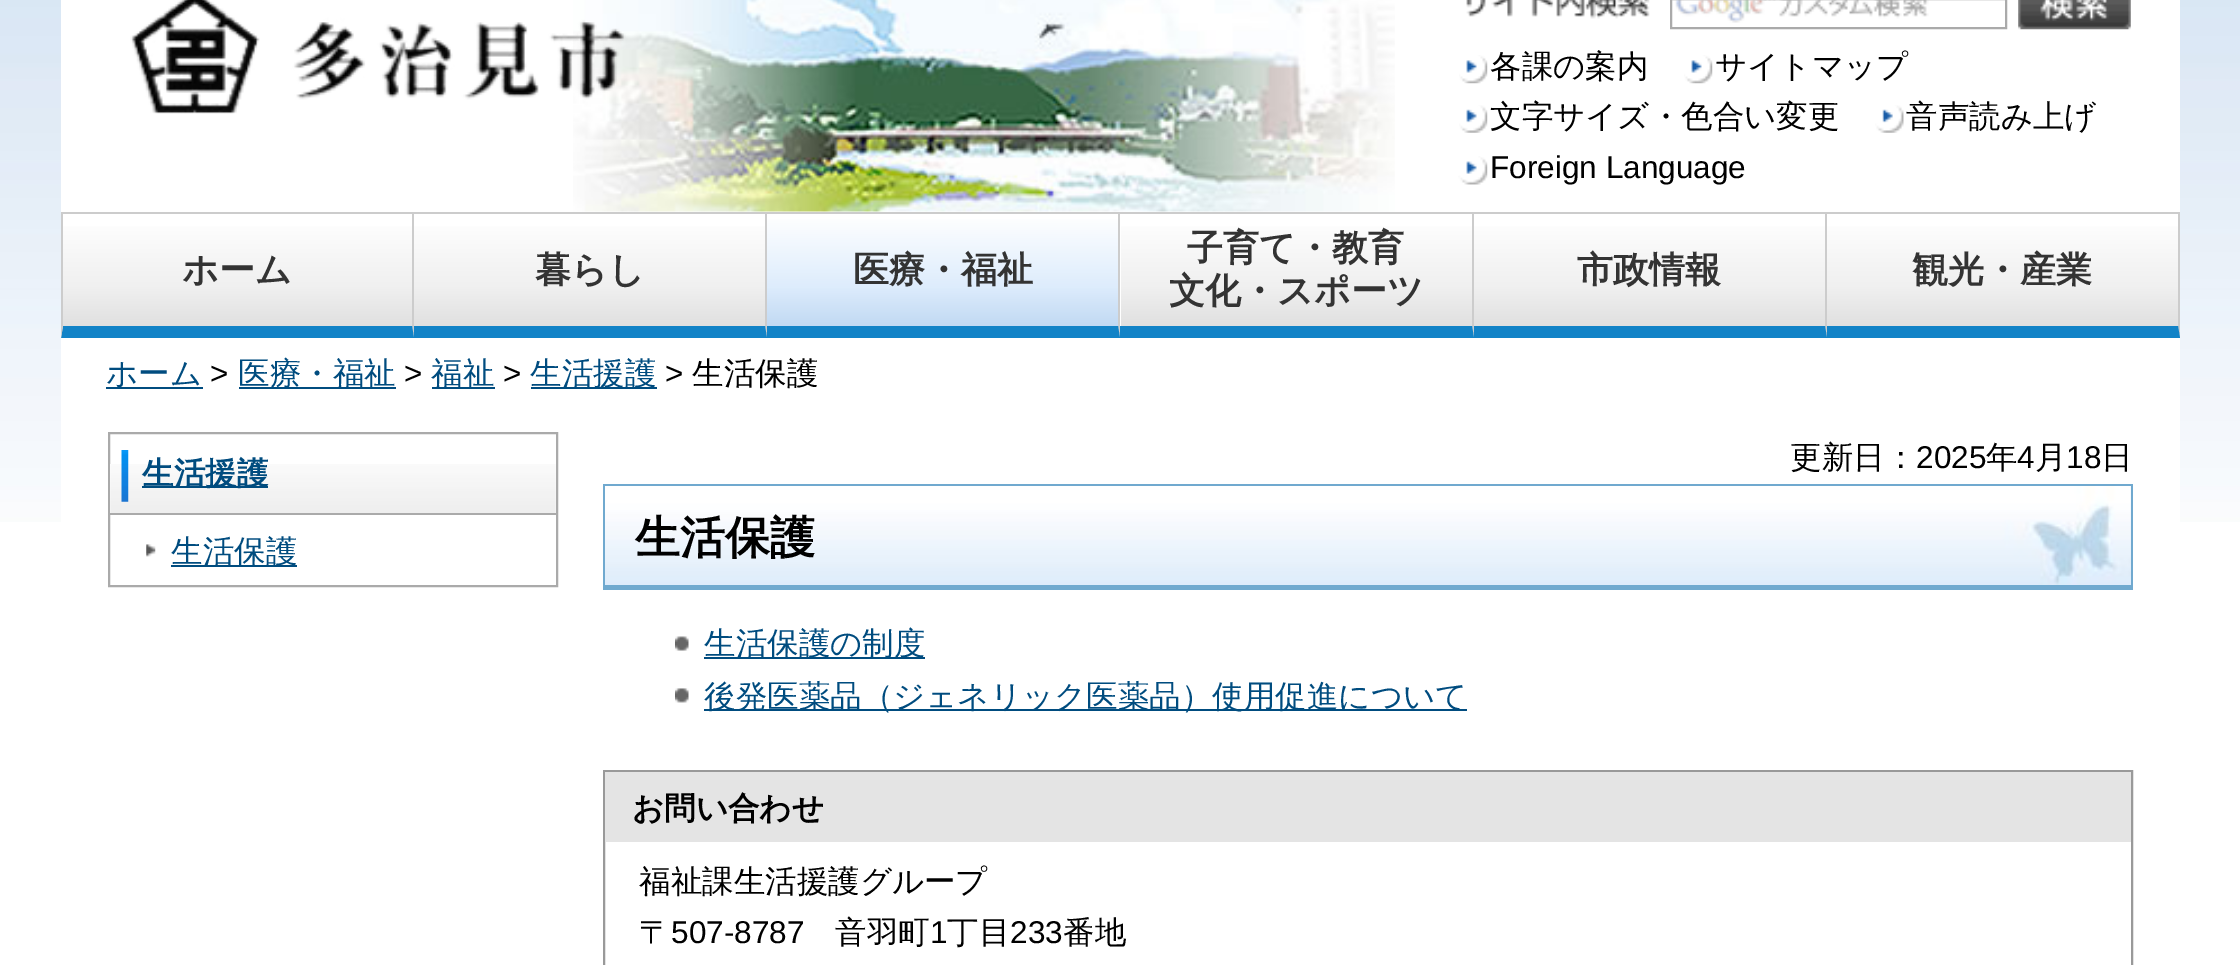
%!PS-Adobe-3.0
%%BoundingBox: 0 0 2240 965
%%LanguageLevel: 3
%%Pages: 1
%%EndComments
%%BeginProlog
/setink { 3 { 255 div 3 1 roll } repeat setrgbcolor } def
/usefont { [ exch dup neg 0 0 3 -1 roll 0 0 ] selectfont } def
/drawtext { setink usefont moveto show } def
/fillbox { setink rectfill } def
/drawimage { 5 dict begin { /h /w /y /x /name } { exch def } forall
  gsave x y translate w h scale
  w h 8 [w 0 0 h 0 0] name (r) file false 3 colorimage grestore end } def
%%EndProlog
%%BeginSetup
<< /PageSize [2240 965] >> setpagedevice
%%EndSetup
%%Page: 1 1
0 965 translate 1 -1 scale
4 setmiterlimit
0 0 2240 965 255 255 255 fillbox
(assets/img1.rgb) 0 0 2240 522 drawimage
61 0 2119 522 255 255 255 fillbox
(assets/img2.rgb) 573 0 822 212 drawimage
(assets/img3.rgb) 130 0 496 114 drawimage
(assets/img4.rgb) 1466 0 184 19 drawimage
(assets/img5.rgb) 1675 0 254 23 drawimage
170 170 170 setink
2 setlinewidth
1671 -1 335 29 rectstroke
(assets/img6.rgb) 2018 0 113 30 drawimage
(assets/img7.rgb) 1459 55 29 29 drawimage
(各課の案内) 1490 77 /WenQuanYiZenHei-Medium 31.5 0 0 0 drawtext
(assets/img7.rgb) 1684 55 29 29 drawimage
(サイトマップ) 1715 77 /WenQuanYiZenHei-Medium 31.5 0 0 0 drawtext
(assets/img8.rgb) 1459 105 29 28 drawimage
(文字サイズ・色合い変更) 1490 127 /WenQuanYiZenHei-Medium 31.5 0 0 0 drawtext
(assets/img9.rgb) 1875 105 29 28 drawimage
(音声読み上げ) 1906 127 /WenQuanYiZenHei-Medium 31.5 0 0 0 drawtext
(assets/img10.rgb) 1458 156 30 29 drawimage
(Foreign Language) 1490 178 /LiberationSans-Regular 31.5 0 0 0 drawtext
61 212 2119 2 204 204 204 fillbox
414 212 moveto 414 338 lineto 412 326 lineto 412 214 lineto closepath fill
18 131 199 setink
414 338 moveto 61 338 lineto 63 326 lineto 412 326 lineto closepath fill
204 204 204 setink
61 338 moveto 61 212 lineto 63 214 lineto 63 326 lineto closepath fill
gsave 63 226 moveto 412 226 lineto 412 326 lineto 63 326 lineto closepath clip newpath
<< /ShadingType 2 /ColorSpace /DeviceRGB /Coords [237 326 237 214] /Extend [true true] /Function << /FunctionType 3 /Domain [0 1] /Functions [<< /FunctionType 2 /Domain [0 1] /C0 [0.878 0.878 0.878] /C1 [0.941 0.941 0.941] /N 1 >> << /FunctionType 2 /Domain [0 1] /C0 [0.941 0.941 0.941] /C1 [1 1 1] /N 1 >>] /Bounds [0.35] /Encode [0 1 0 1] >> >> shfill grestore
(ホーム) 182 282 /WenQuanYiZenHei-Bold 36 51 51 51 drawtext
204 204 204 setink
767 212 moveto 767 338 lineto 765 326 lineto 765 214 lineto closepath fill
18 131 199 setink
767 338 moveto 414 338 lineto 414 326 lineto 765 326 lineto closepath fill
gsave 414 226 moveto 765 226 lineto 765 326 lineto 414 326 lineto closepath clip newpath
<< /ShadingType 2 /ColorSpace /DeviceRGB /Coords [590 326 590 214] /Extend [true true] /Function << /FunctionType 3 /Domain [0 1] /Functions [<< /FunctionType 2 /Domain [0 1] /C0 [0.878 0.878 0.878] /C1 [0.941 0.941 0.941] /N 1 >> << /FunctionType 2 /Domain [0 1] /C0 [0.941 0.941 0.941] /C1 [1 1 1] /N 1 >>] /Bounds [0.35] /Encode [0 1 0 1] >> >> shfill grestore
(暮らし) 535 282 /WenQuanYiZenHei-Bold 36 51 51 51 drawtext
204 204 204 setink
1120 212 moveto 1120 338 lineto 1118 326 lineto 1118 214 lineto closepath fill
18 131 199 setink
1120 338 moveto 767 338 lineto 767 326 lineto 1118 326 lineto closepath fill
gsave 767 219 moveto 1118 219 lineto 1118 326 lineto 767 326 lineto closepath clip newpath
<< /ShadingType 2 /ColorSpace /DeviceRGB /Coords [943 326 943 214] /Extend [true true] /Function << /FunctionType 3 /Domain [0 1] /Functions [<< /FunctionType 2 /Domain [0 1] /C0 [0.757 0.851 0.953] /C1 [0.867 0.925 0.988] /N 1 >> << /FunctionType 2 /Domain [0 1] /C0 [0.867 0.925 0.988] /C1 [1 1 1] /N 1 >>] /Bounds [0.35] /Encode [0 1 0 1] >> >> shfill grestore
(医療・福祉) 853 282 /WenQuanYiZenHei-Bold 36 51 51 51 drawtext
204 204 204 setink
1474 212 moveto 1474 338 lineto 1472 326 lineto 1472 214 lineto closepath fill
18 131 199 setink
1474 338 moveto 1120 338 lineto 1120 326 lineto 1472 326 lineto closepath fill
gsave 1121 226 moveto 1472 226 lineto 1472 326 lineto 1121 326 lineto closepath clip newpath
<< /ShadingType 2 /ColorSpace /DeviceRGB /Coords [1296 326 1296 214] /Extend [true true] /Function << /FunctionType 3 /Domain [0 1] /Functions [<< /FunctionType 2 /Domain [0 1] /C0 [0.878 0.878 0.878] /C1 [0.941 0.941 0.941] /N 1 >> << /FunctionType 2 /Domain [0 1] /C0 [0.941 0.941 0.941] /C1 [1 1 1] /N 1 >>] /Bounds [0.35] /Encode [0 1 0 1] >> >> shfill grestore
(子育て・教育) 1187 260 /WenQuanYiZenHei-Bold 36 51 51 51 drawtext
(文化・スポーツ) 1169 303 /WenQuanYiZenHei-Bold 36 51 51 51 drawtext
204 204 204 setink
1827 212 moveto 1827 338 lineto 1825 326 lineto 1825 214 lineto closepath fill
18 131 199 setink
1827 338 moveto 1474 338 lineto 1474 326 lineto 1825 326 lineto closepath fill
gsave 1474 226 moveto 1825 226 lineto 1825 326 lineto 1474 326 lineto closepath clip newpath
<< /ShadingType 2 /ColorSpace /DeviceRGB /Coords [1649 326 1649 214] /Extend [true true] /Function << /FunctionType 3 /Domain [0 1] /Functions [<< /FunctionType 2 /Domain [0 1] /C0 [0.878 0.878 0.878] /C1 [0.941 0.941 0.941] /N 1 >> << /FunctionType 2 /Domain [0 1] /C0 [0.941 0.941 0.941] /C1 [1 1 1] /N 1 >>] /Bounds [0.35] /Encode [0 1 0 1] >> >> shfill grestore
(市政情報) 1577 282 /WenQuanYiZenHei-Bold 36 51 51 51 drawtext
204 204 204 setink
2180 212 moveto 2180 338 lineto 2178 326 lineto 2178 214 lineto closepath fill
18 131 199 setink
2180 338 moveto 1827 338 lineto 1827 326 lineto 2178 326 lineto closepath fill
gsave 1827 226 moveto 2178 226 lineto 2178 326 lineto 1827 326 lineto closepath clip newpath
<< /ShadingType 2 /ColorSpace /DeviceRGB /Coords [2003 326 2003 214] /Extend [true true] /Function << /FunctionType 3 /Domain [0 1] /Functions [<< /FunctionType 2 /Domain [0 1] /C0 [0.878 0.878 0.878] /C1 [0.941 0.941 0.941] /N 1 >> << /FunctionType 2 /Domain [0 1] /C0 [0.941 0.941 0.941] /C1 [1 1 1] /N 1 >>] /Bounds [0.35] /Encode [0 1 0 1] >> >> shfill grestore
(観光・産業) 1912 282 /WenQuanYiZenHei-Bold 36 51 51 51 drawtext
106 387 97 2 0 76 127 fillbox
(ホーム) 106 384 /WenQuanYiZenHei-Medium 31.5 0 76 127 drawtext
(>) 210 384 /LiberationSans-Regular 31.5 0 0 0 drawtext
239 387 157 2 0 76 127 fillbox
(医療・福祉) 238 384 /WenQuanYiZenHei-Medium 31.5 0 76 127 drawtext
(>) 404 384 /LiberationSans-Regular 31.5 0 0 0 drawtext
432 387 63 2 0 76 127 fillbox
(福祉) 431 384 /WenQuanYiZenHei-Medium 31.5 0 76 127 drawtext
(>) 503 384 /LiberationSans-Regular 31.5 0 0 0 drawtext
531 387 126 2 0 76 127 fillbox
(生活援護) 530 384 /WenQuanYiZenHei-Medium 31.5 0 76 127 drawtext
(>) 665 384 /LiberationSans-Regular 31.5 0 0 0 drawtext
(生活保護) 692 384 /WenQuanYiZenHei-Medium 31.5 0 0 0 drawtext
170 170 170 setink
109 433 448 153 rectstroke
(assets/img11.rgb) 110 464 446 49 drawimage
110 513 446 2 170 170 170 fillbox
(assets/img12.rgb) 121 450 8 52 drawimage
142 486 126 2 0 76 127 fillbox
(生活援護) 142 484 /WenQuanYiZenHei-Bold 31.5 0 76 127 drawtext
(assets/img13.rgb) 146 544 10 13 drawimage
171 565 126 2 0 76 127 fillbox
(生活保護) 171 562 /WenQuanYiZenHei-Medium 31.5 0 76 127 drawtext
(更新日：) 1790 468 /WenQuanYiZenHei-Medium 31.5 0 0 0 drawtext
(2025) 1916 468 /LiberationSans-Regular 31.5 0 0 0 drawtext
(年) 1986 468 /WenQuanYiZenHei-Medium 31.5 0 0 0 drawtext
(4) 2017 468 /LiberationSans-Regular 31.5 0 0 0 drawtext
(月) 2035 468 /WenQuanYiZenHei-Medium 31.5 0 0 0 drawtext
(18) 2066 468 /LiberationSans-Regular 31.5 0 0 0 drawtext
(日) 2101 468 /WenQuanYiZenHei-Medium 31.5 0 0 0 drawtext
(assets/img14.rgb) 605 486 1526 99 drawimage
603 484 1530 2 112 169 207 fillbox
2131 484 2 106 112 169 207 fillbox
603 585 1530 5 112 169 207 fillbox
603 484 2 106 112 169 207 fillbox
(生活保護) 635 553 /WenQuanYiZenHei-Bold 45 0 0 0 drawtext
(assets/img15.rgb) 675 636 14 15 drawimage
704 657 221 2 0 76 127 fillbox
(生活保護の制度) 704 654 /WenQuanYiZenHei-Medium 31.5 0 76 127 drawtext
(assets/img16.rgb) 675 688 14 15 drawimage
704 709 763 2 0 76 127 fillbox
(後発医薬品（ジェネリック医薬品）使用促進について) 704 707 /WenQuanYiZenHei-Medium 31.5 0 76 127 drawtext
153 153 153 setink
604 771 1528 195 rectstroke
605 772 1526 70 228 228 228 fillbox
(お問い合わせ) 632 819 /WenQuanYiZenHei-Bold 31.5 0 0 0 drawtext
(福祉課生活援護グループ) 639 892 /WenQuanYiZenHei-Medium 31.5 0 0 0 drawtext
(〒) 639 943 /WenQuanYiZenHei-Medium 31.5 0 0 0 drawtext
(507-8787) 671 943 /LiberationSans-Regular 31.5 0 0 0 drawtext
(音羽町) 835 943 /WenQuanYiZenHei-Medium 31.5 0 0 0 drawtext
(1) 930 943 /LiberationSans-Regular 31.5 0 0 0 drawtext
(丁目) 947 943 /WenQuanYiZenHei-Medium 31.5 0 0 0 drawtext
(233) 1010 943 /LiberationSans-Regular 31.5 0 0 0 drawtext
(番地) 1063 943 /WenQuanYiZenHei-Medium 31.5 0 0 0 drawtext
showpage
%%EOF
